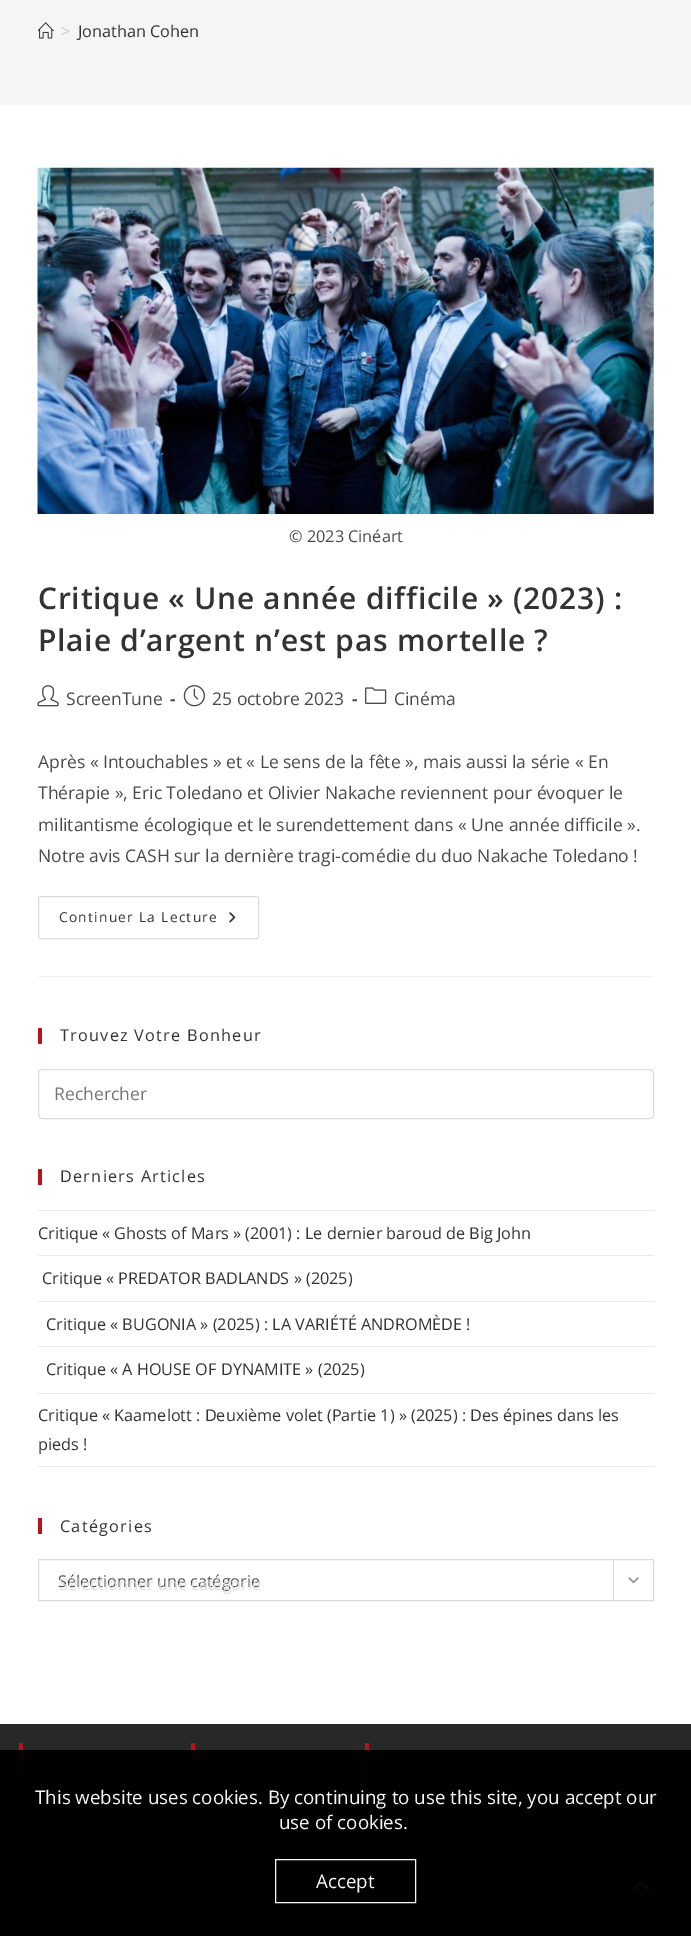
%!PS-Adobe-3.0
%%BoundingBox: 0 0 691 1936
%%LanguageLevel: 3
%%Pages: 1
%%EndComments
%%BeginProlog
/setink { 3 { 255 div 3 1 roll } repeat setrgbcolor } def
/usefont { [ exch dup neg 0 0 3 -1 roll 0 0 ] selectfont } def
/drawtext { setink usefont moveto show } def
/fillbox { setink rectfill } def
/setalpha { dup .setfillconstantalpha .setstrokeconstantalpha } def
/rrect { 5 dict begin { /r /h /w /y /x } { exch def } forall
  x r add y moveto x w add y 2 copy h add r arct x w add y h add x 1 index r arct
  x y h add x y r arct x y 2 copy exch w add exch r arct closepath end } def
/drawimage { 5 dict begin { /h /w /y /x /name } { exch def } forall
  gsave x y translate w h scale
  w h 8 [w 0 0 h 0 0] name (r) file false 3 colorimage grestore end } def
%%EndProlog
%%BeginSetup
<< /PageSize [691 1936] /PageUsesTransparency true >> setpagedevice
%%EndSetup
%%Page: 1 1
0 .pushpdf14devicefilter
0 1936 translate 1 -1 scale
4 setmiterlimit
0 0 691 1936 255 255 255 fillbox
0 0 691 105 245 245 245 fillbox
(assets/img1.rgb) 38 22 16 17 drawimage
(>) 61 37 /OpenSans-Regular 16.25 198 198 198 drawtext
(Jonathan Cohen) 78 37 /OpenSans-Regular 16.25 51 51 51 drawtext
38 976 616 1 241 241 241 fillbox
(assets/img2.rgb) 37 167 617 347 drawimage
(© 2023 Cinéart) 289 542 /OpenSans-Regular 16.25 74 74 74 drawtext
/OpenSans-SemiBold 30 usefont
51 51 51 setink
38 609 moveto 0.75 0 (Critique « Une année difficile » \(2023\) :) ashow
38 651 moveto 0.75 0 (Plaie d’argent n’est pas mortelle ?) ashow
(assets/img3.rgb) 37 685 22 22 drawimage
(ScreenTune) 66 705 /OpenSans-Regular 17.5 74 74 74 drawtext
(-) 170 705 /OpenSans-Bold 17.5 74 74 74 drawtext
(assets/img4.rgb) 183 685 22 22 drawimage
(25 octobre 2023) 212 705 /OpenSans-Regular 17.5 74 74 74 drawtext
(-) 352 705 /OpenSans-Bold 17.5 74 74 74 drawtext
(assets/img5.rgb) 365 687 22 17 drawimage
(Cinéma) 394 705 /OpenSans-Regular 17.5 74 74 74 drawtext
(Après « Intouchables » et « Le sens de la fête », mais aussi la série « En) 38 768 /OpenSans-Regular 17.5 74 74 74 drawtext
(Thérapie », Eric Toledano et Olivier Nakache reviennent pour évoquer le) 38 799 /OpenSans-Regular 17.5 74 74 74 drawtext
(militantisme écologique et le surendettement dans « Une année difficile ».) 38 831 /OpenSans-Regular 17.5 74 74 74 drawtext
(Notre avis CASH sur la dernière tragi-comédie du duo Nakache Toledano !) 38 862 /OpenSans-Regular 17.5 74 74 74 drawtext
221 221 221 setink
38.5 896.5 220 42 2 rrect stroke
/OpenSans-Regular 13.75 usefont
51 51 51 setink
59 922 moveto 1.25 0 (Continuer La Lecture) ashow
(assets/img6.rgb) 229 912 7 11 drawimage
38 1028 4 16 186 20 26 fillbox
/OpenSans-Regular 16.25 usefont
51 51 51 setink
60 1041 moveto 1.25 0 (Trouvez Votre Bonheur) ashow
221 221 221 setink
38.5 1069.5 615 49 3.5 rrect stroke
(Rechercher) 54 1100 /OpenSans-Regular 17.5 117 117 117 drawtext
38 1169 4 16 186 20 26 fillbox
/OpenSans-Regular 16.25 usefont
51 51 51 setink
60 1182 moveto 1.25 0 (Derniers Articles) ashow
38 1210 616 1 233 233 233 fillbox
38 1255 616 1 233 233 233 fillbox
(Critique « Ghosts of Mars » \(2001\) : Le dernier baroud de Big John) 38 1239 /OpenSans-Regular 16.25 51 51 51 drawtext
38 1301 616 1 233 233 233 fillbox
(Critique « PREDATOR BADLANDS » \(2025\)) 42 1284 /OpenSans-Regular 16.25 51 51 51 drawtext
38 1346 616 1 233 233 233 fillbox
(Critique « BUGONIA » \(2025\) : LA VARIÉTÉ ANDROMÈDE !) 46 1330 /OpenSans-Regular 16.25 51 51 51 drawtext
38 1393 616 1 233 233 233 fillbox
(Critique « A HOUSE OF DYNAMITE » \(2025\)) 46 1375 /OpenSans-Regular 16.25 51 51 51 drawtext
38 1466 616 1 233 233 233 fillbox
(Critique « Kaamelott : Deuxième volet \(Partie 1\) » \(2025\) : Des épines dans les) 38 1421 /OpenSans-Regular 16.25 51 51 51 drawtext
(pieds !) 38 1450 /OpenSans-Regular 16.25 51 51 51 drawtext
38 1518 4 16 186 20 26 fillbox
51 51 51 setink
60 1532 moveto 1.25 0 (Catégories) ashow
221 221 221 setink
38.5 1559.5 615 41 rectstroke
(Sélectionner une catégorie) 58 1587 /OpenSans-Regular 16.25 85 85 85 drawtext
613 1560 1 40 221 221 221 fillbox
(assets/img7.rgb) 628 1577 11 7 drawimage
(Sélectionner une catégorie) 59 1590 /OpenSans-Regular 16.25 222 222 222 drawtext
0 1724 691 212 40 40 40 fillbox
19 1743 4 32 186 20 26 fillbox
191 1743 4 16 186 20 26 fillbox
365 1743 4 48 186 20 26 fillbox
365 1816 135 120 0 0 0 fillbox
24 24 24 setink
616 1861 50 50 2.5 rrect fill
(assets/img8.rgb) 632 1881 18 10 drawimage
0.97 setalpha
0 1750 691 186 0 0 0 fillbox
1 setalpha
(This website uses cookies. By continuing to use this site, you accept our) 35 1804 /OpenSans-Regular 18.75 247 247 247 drawtext
(use of cookies.) 279 1829 /OpenSans-Regular 18.75 247 247 247 drawtext
0.97 setalpha
255 255 255 setink
275.5 1859.5 140 43 rectstroke
1 setalpha
(Accept) 316 1888 /OpenSans-Regular 18.75 247 247 247 drawtext
.poppdf14devicefilter showpage
%%EOF
